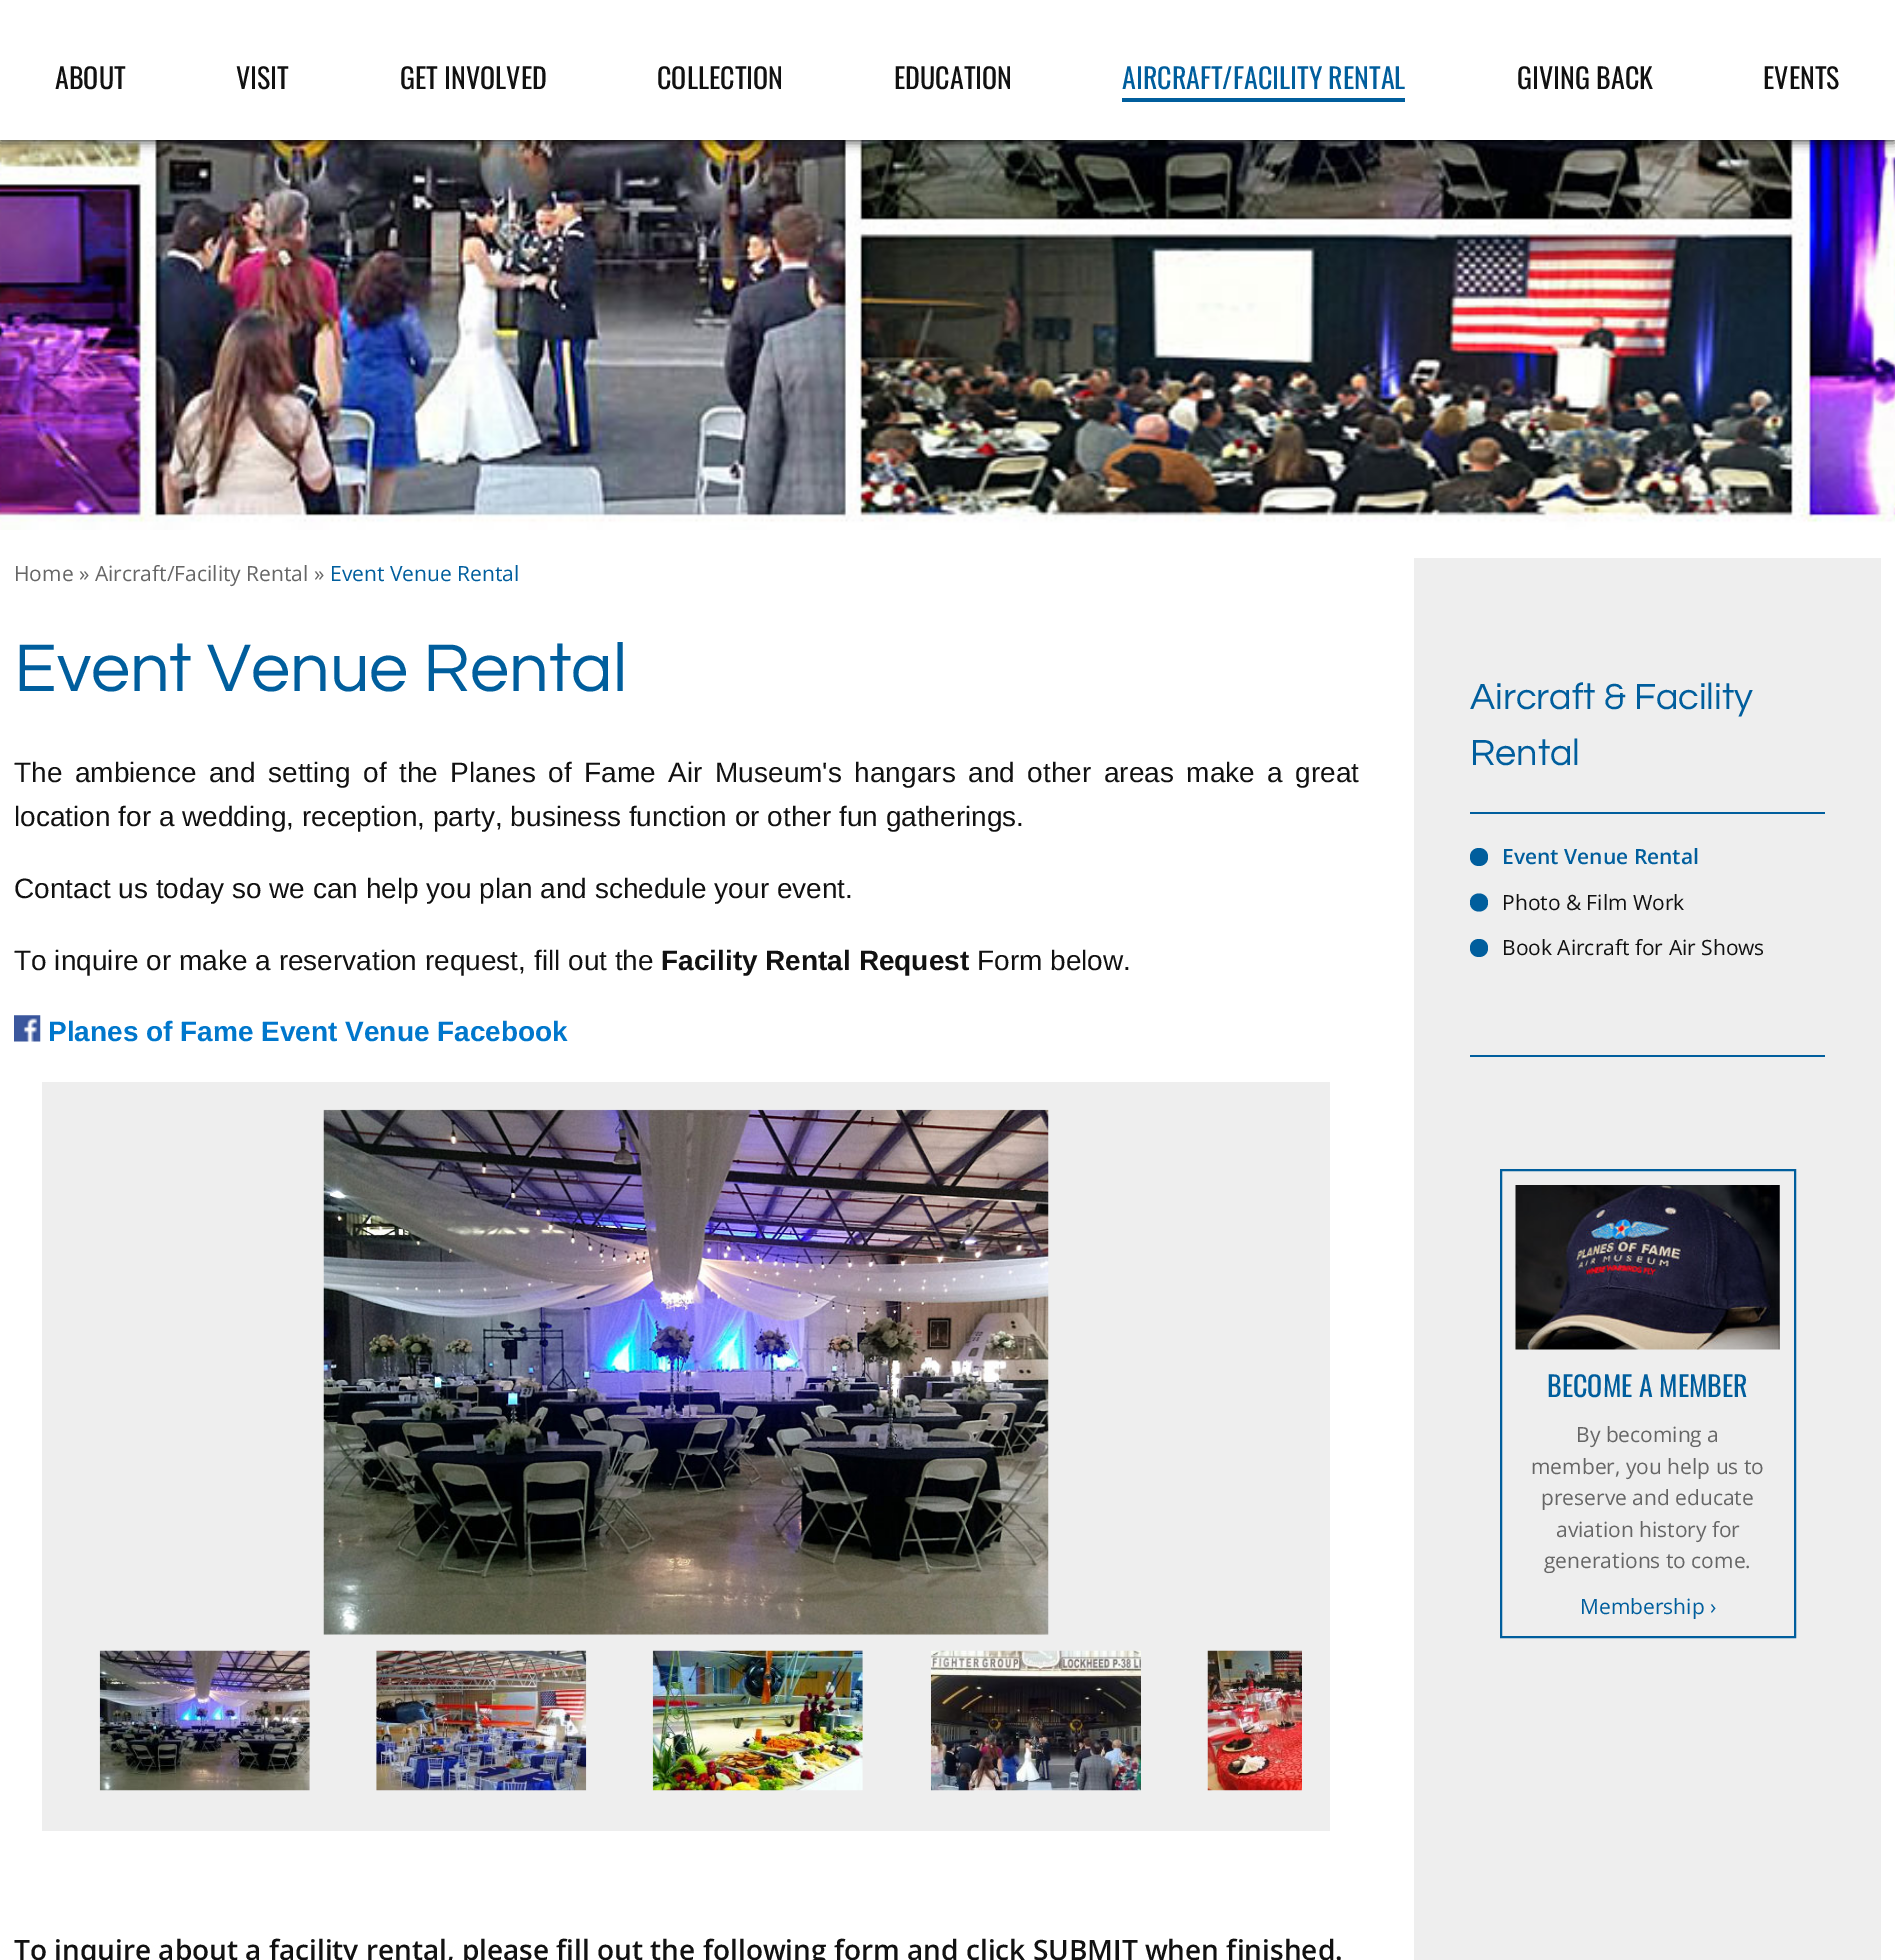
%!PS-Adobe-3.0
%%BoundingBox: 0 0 1895 1960
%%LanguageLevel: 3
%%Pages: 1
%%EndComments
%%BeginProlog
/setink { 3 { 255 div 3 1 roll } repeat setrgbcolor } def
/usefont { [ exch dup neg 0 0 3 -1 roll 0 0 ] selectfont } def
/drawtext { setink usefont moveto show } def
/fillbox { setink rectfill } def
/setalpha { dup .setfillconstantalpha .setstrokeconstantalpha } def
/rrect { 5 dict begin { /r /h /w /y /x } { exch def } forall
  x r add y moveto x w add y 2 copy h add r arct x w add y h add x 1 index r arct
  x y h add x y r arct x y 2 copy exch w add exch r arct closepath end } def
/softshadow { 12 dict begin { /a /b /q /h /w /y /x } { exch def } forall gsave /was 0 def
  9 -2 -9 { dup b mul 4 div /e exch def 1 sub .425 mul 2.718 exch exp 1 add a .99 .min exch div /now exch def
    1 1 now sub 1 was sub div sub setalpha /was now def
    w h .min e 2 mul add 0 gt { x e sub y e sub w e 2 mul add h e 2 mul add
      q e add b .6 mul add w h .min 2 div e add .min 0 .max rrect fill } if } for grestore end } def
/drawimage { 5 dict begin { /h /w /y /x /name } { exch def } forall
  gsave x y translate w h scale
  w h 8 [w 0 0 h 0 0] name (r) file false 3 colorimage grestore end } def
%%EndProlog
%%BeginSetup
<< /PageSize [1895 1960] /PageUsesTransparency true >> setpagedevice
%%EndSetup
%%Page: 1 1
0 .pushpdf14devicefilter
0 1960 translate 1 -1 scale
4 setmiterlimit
0 0 1895 1960 255 255 255 fillbox
(assets/img1.rgb) 0 140 1895 390 drawimage
0 0 0 setink
0 0 1895 140 0 6 1 softshadow
0 0 1895 140 255 255 255 fillbox
(ABOUT) 55 89 /Oswald-Regular 28 17 17 17 drawtext
(VISIT) 236 89 /Oswald-Regular 28 17 17 17 drawtext
(GET INVOLVED) 400 89 /Oswald-Regular 28 17 17 17 drawtext
(COLLECTION) 657 89 /Oswald-Regular 28 17 17 17 drawtext
(EDUCATION) 894 89 /Oswald-Regular 28 17 17 17 drawtext
(AIRCRAFT/FACILITY RENTAL) 1122 89 /Oswald-Regular 28 0 94 157 drawtext
1122 98 283 4 0 94 157 fillbox
(GIVING BACK) 1517 89 /Oswald-Regular 28 17 17 17 drawtext
(EVENTS) 1763 89 /Oswald-Regular 28 17 17 17 drawtext
(Home » Aircraft/Facility Rental ») 14 581 /OpenSans-Regular 21 102 102 102 drawtext
(Event Venue Rental) 330 581 /OpenSans-Regular 21 0 94 157 drawtext
(Event Venue Rental) 14 691 /Questrial-Regular 70 0 94 157 drawtext
/LiberationSans-Regular 28 usefont
17 17 17 setink
14 782 moveto 4.75 0 32 (The ambience and setting of the Planes of Fame Air Museum's hangars and other areas make a great) widthshow
(location for a wedding, reception, party, business function or other fun gatherings.) 14 826 /LiberationSans-Regular 28 17 17 17 drawtext
(Contact us today so we can help you plan and schedule your event.) 14 898 /LiberationSans-Regular 28 17 17 17 drawtext
(To inquire or make a reservation request, fill out the) 14 970 /LiberationSans-Regular 28 17 17 17 drawtext
(Facility Rental Request) 661 970 /LiberationSans-Bold 28 17 17 17 drawtext
(Form below.) 977 970 /LiberationSans-Regular 28 17 17 17 drawtext
(assets/img2.rgb) 14 1015 27 27 drawimage
(Planes of Fame Event Venue Facebook) 48 1041 /LiberationSans-Bold 28 0 119 204 drawtext
42 1082 1288 749 238 238 238 fillbox
(assets/img3.rgb) 323 1109 726 526 drawimage
(assets/img4.rgb) 99 1650 211 141 drawimage
(assets/img5.rgb) 376 1650 211 141 drawimage
(assets/img6.rgb) 652 1650 211 141 drawimage
(assets/img7.rgb) 931 1650 210 141 drawimage
(assets/img8.rgb) 1207 1650 95 141 drawimage
(To inquire about a facility rental, please fill out the following form and click SUBMIT when finished.) 14 1960 /OpenSans-SemiBold 28 17 17 17 drawtext
1414 558 467 1402 238 238 238 fillbox
1470 812 355 2 0 94 157 fillbox
(Aircraft & Facility) 1470 709 /Questrial-Regular 37.75 0 94 157 drawtext
(Rental) 1470 765 /Questrial-Regular 37.75 0 94 157 drawtext
1488 857 moveto 1488 845 1470 845 1470 857 curveto 1470 869 1488 869 1488 857 curveto closepath fill
(Event Venue Rental) 1502 864 /OpenSans-SemiBold 21 0 94 157 drawtext
1488 902.5 moveto 1488 890.5 1470 890.5 1470 902.5 curveto 1470 914.5 1488 914.5 1488 902.5 curveto closepath fill
(Photo & Film Work) 1502 910 /OpenSans-Regular 21 17 17 17 drawtext
0 94 157 setink
1488 948 moveto 1488 936 1470 936 1470 948 curveto 1470 960 1488 960 1488 948 curveto closepath fill
(Book Aircraft for Air Shows) 1502 955 /OpenSans-Regular 21 17 17 17 drawtext
1470 1055 355 2 0 94 157 fillbox
2 setlinewidth
1501 1170 294 467 rectstroke
(assets/img9.rgb) 1515 1185 265 165 drawimage
(BECOME A MEMBER) 1547 1397 /Oswald-Regular 28 0 94 157 drawtext
(By becoming a) 1576 1442 /OpenSans-Regular 21 102 102 102 drawtext
(member, you help us to) 1531 1474 /OpenSans-Regular 21 102 102 102 drawtext
(preserve and educate) 1541 1505 /OpenSans-Regular 21 102 102 102 drawtext
(aviation history for) 1556 1537 /OpenSans-Regular 21 102 102 102 drawtext
(generations to come.) 1544 1568 /OpenSans-Regular 21 102 102 102 drawtext
(Membership ›) 1580 1614 /OpenSans-Regular 21 0 94 157 drawtext
.poppdf14devicefilter showpage
%%EOF
